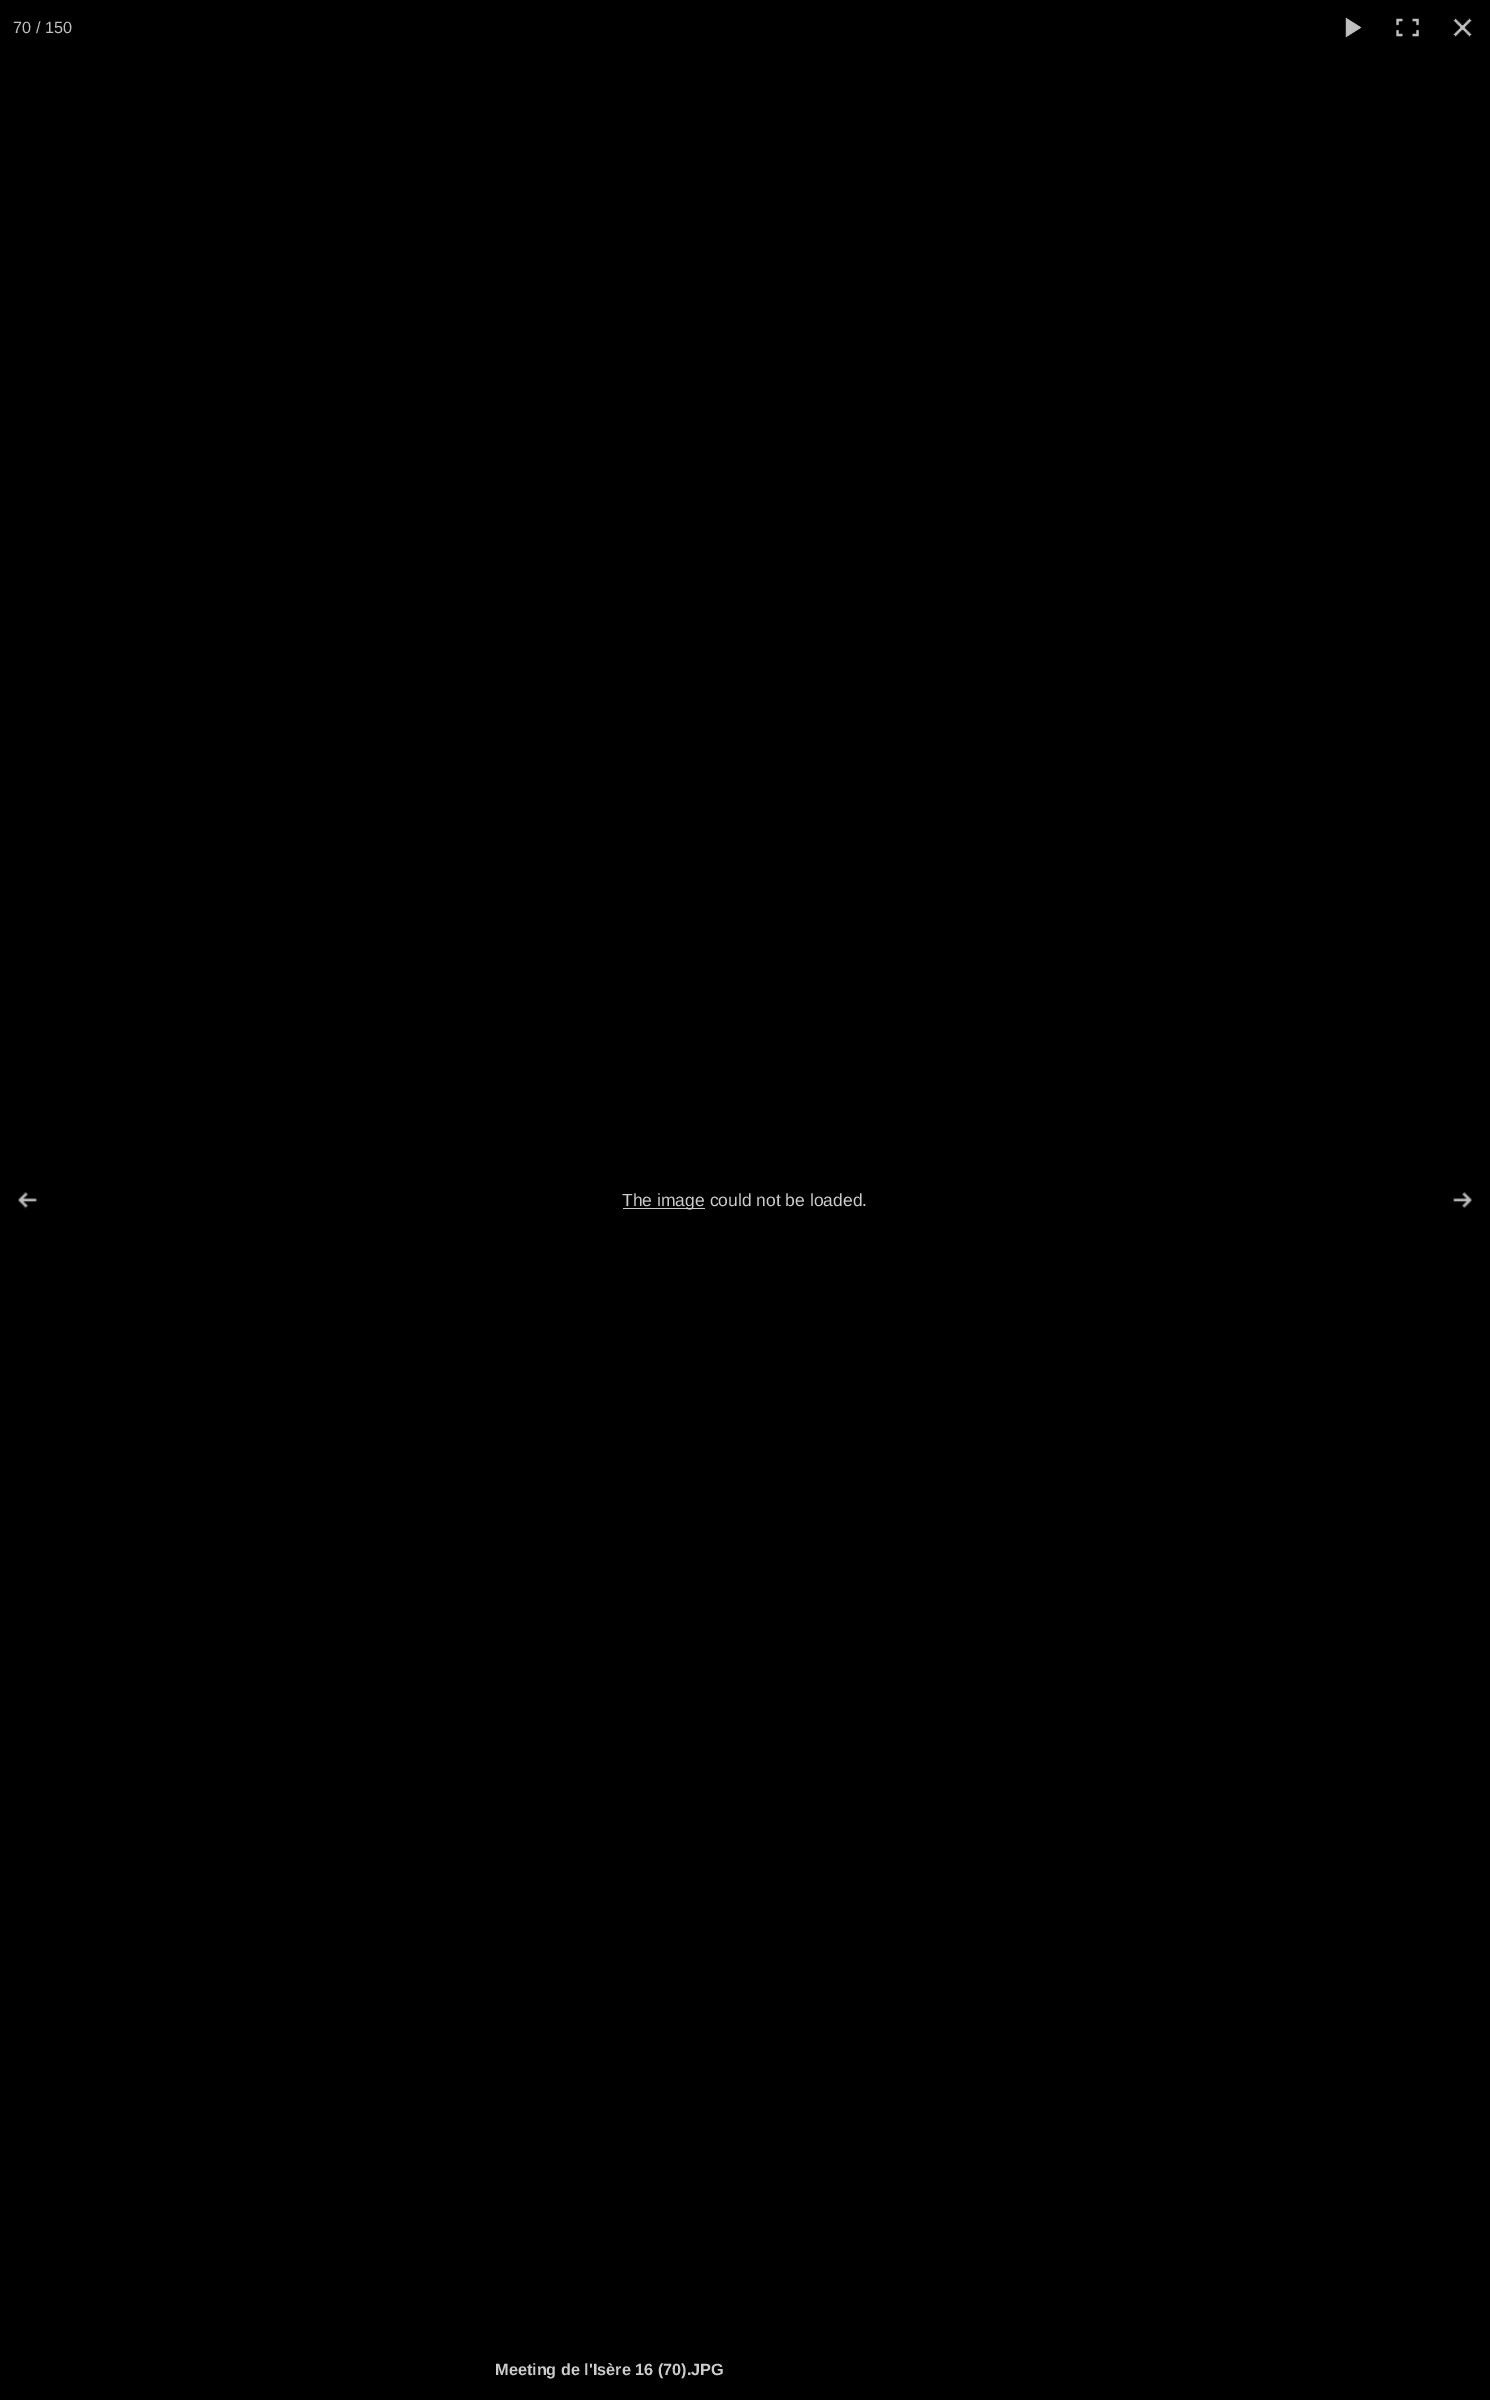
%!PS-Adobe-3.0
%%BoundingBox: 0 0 1490 2400
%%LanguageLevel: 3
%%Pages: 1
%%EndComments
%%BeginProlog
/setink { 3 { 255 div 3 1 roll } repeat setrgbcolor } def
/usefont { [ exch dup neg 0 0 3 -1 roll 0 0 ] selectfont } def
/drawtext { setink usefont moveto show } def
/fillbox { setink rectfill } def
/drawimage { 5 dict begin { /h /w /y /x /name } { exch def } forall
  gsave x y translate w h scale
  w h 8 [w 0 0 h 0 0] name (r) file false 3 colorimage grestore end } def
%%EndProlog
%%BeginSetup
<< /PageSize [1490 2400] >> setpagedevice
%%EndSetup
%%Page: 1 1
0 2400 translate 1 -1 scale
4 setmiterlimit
0 0 1490 2400 0 0 0 fillbox
(70 / 150) 13 33 /LiberationSans-Regular 16.25 191 191 191 drawtext
(assets/img1.rgb) 1345 17 17 21 drawimage
(assets/img2.rgb) 1396 18 23 19 drawimage
(assets/img3.rgb) 1453 18 19 19 drawimage
(assets/img4.rgb) 18 1192 19 17 drawimage
(assets/img5.rgb) 1453 1192 19 17 drawimage
(Meeting de l'Isère 16 \(70\).JPG) 495 2375 /LiberationSans-Bold 16.25 204 204 204 drawtext
623 1208 82 1 204 204 204 fillbox
(The image could not be loaded.) 622 1206 /LiberationSans-Regular 17.5 204 204 204 drawtext
showpage
%%EOF
